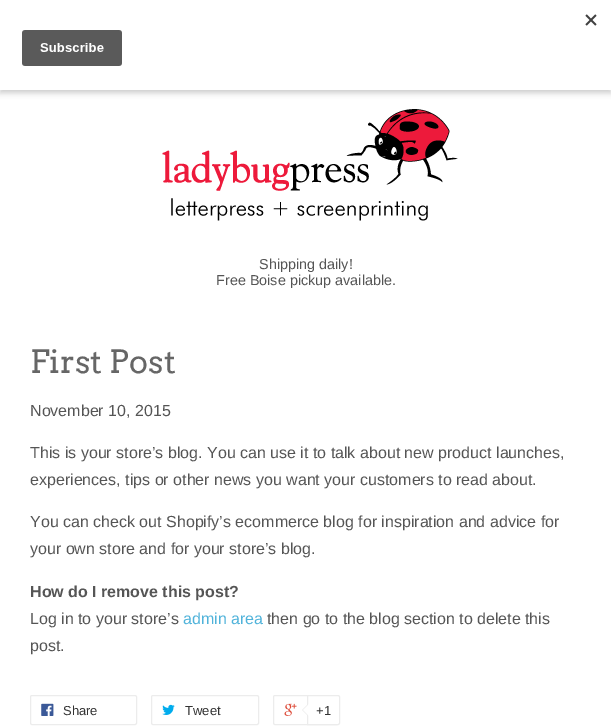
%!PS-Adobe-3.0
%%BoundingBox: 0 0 611 727
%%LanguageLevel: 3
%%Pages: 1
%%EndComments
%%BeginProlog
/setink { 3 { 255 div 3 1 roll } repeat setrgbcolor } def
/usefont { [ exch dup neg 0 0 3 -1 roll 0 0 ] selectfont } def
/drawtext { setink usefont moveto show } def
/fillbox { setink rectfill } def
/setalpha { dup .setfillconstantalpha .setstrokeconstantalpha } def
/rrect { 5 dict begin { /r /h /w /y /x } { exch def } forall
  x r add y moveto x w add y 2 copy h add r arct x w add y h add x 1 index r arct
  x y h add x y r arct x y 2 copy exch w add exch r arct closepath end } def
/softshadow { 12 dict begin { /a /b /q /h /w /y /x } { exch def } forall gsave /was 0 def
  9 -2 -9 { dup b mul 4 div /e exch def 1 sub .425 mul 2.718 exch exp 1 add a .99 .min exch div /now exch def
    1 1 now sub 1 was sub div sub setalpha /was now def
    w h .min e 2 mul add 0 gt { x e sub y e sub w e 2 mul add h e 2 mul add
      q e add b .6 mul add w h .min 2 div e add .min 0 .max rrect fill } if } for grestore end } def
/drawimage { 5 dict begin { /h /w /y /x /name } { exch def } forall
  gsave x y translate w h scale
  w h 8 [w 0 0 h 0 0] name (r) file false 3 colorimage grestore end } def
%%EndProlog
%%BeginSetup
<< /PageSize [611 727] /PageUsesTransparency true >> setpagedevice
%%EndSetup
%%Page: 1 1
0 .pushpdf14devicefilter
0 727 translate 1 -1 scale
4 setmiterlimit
0 0 611 727 255 255 255 fillbox
0 0 0 setink
0 3 611 90 0 3 0.2 softshadow
0 0 611 90 255 255 255 fillbox
(assets/img1.rgb) 22 14 575 52 drawimage
(assets/img2.rgb) 162 109 296 112 drawimage
(Shipping daily!) 259 269 /LiberationSans-Regular 14.4 85 85 85 drawtext
(Free Boise pickup available.) 216 285 /LiberationSans-Regular 14.4 85 85 85 drawtext
(First Post) 30 373 /Arvo-Regular 32 102 102 102 drawtext
(November 10, 2015) 30 416 /LiberationSans-Regular 16 85 85 85 drawtext
(This is your store’s blog. You can use it to talk about new product launches,) 30 458 /LiberationSans-Regular 16 85 85 85 drawtext
(experiences, tips or other news you want your customers to read about.) 30 485 /LiberationSans-Regular 16 85 85 85 drawtext
(You can check out Shopify’s ecommerce blog for inspiration and advice for) 30 527 /LiberationSans-Regular 16 85 85 85 drawtext
(your own store and for your store’s blog.) 30 554 /LiberationSans-Regular 16 85 85 85 drawtext
(How do I remove this post?) 30 597 /LiberationSans-Bold 16 85 85 85 drawtext
(Log in to your store’s) 30 624 /LiberationSans-Regular 16 85 85 85 drawtext
(admin area) 183 624 /LiberationSans-Regular 16 80 179 218 drawtext
(then go to the blog section to delete this) 267 624 /LiberationSans-Regular 16 85 85 85 drawtext
(post.) 30 651 /LiberationSans-Regular 16 85 85 85 drawtext
236 236 236 setink
30.5 695.5 106 29 1.5 rrect stroke
(assets/img3.rgb) 41 703 13 13 drawimage
(Share) 63 715 /LiberationSans-Regular 13 51 51 51 drawtext
236 236 236 setink
151.5 695.5 107 29 1.5 rrect stroke
(assets/img4.rgb) 162 704 13 11 drawimage
(Tweet) 185 715 /LiberationSans-Regular 13 51 51 51 drawtext
236 236 236 setink
273.5 695.5 65 29 1.5 rrect stroke
(assets/img5.rgb) 284 703 13 13 drawimage
255 255 255 setink
307.5 695.5 moveto 338 695.5 lineto 339 695.5 339.5 696 339.5 697 curveto 339.5 723 lineto 339.5 724 339 724.5 338 724.5 curveto 307.5 724.5 lineto closepath gsave fill grestore
236 236 236 setink
stroke
308 704 moveto 308 716 lineto 302 710 lineto closepath fill
255 255 255 setink
309 704 moveto 309 716 lineto 303 710 lineto closepath fill
(+1) 316 715 /LiberationSans-Regular 13 51 51 51 drawtext
.poppdf14devicefilter showpage
%%EOF
